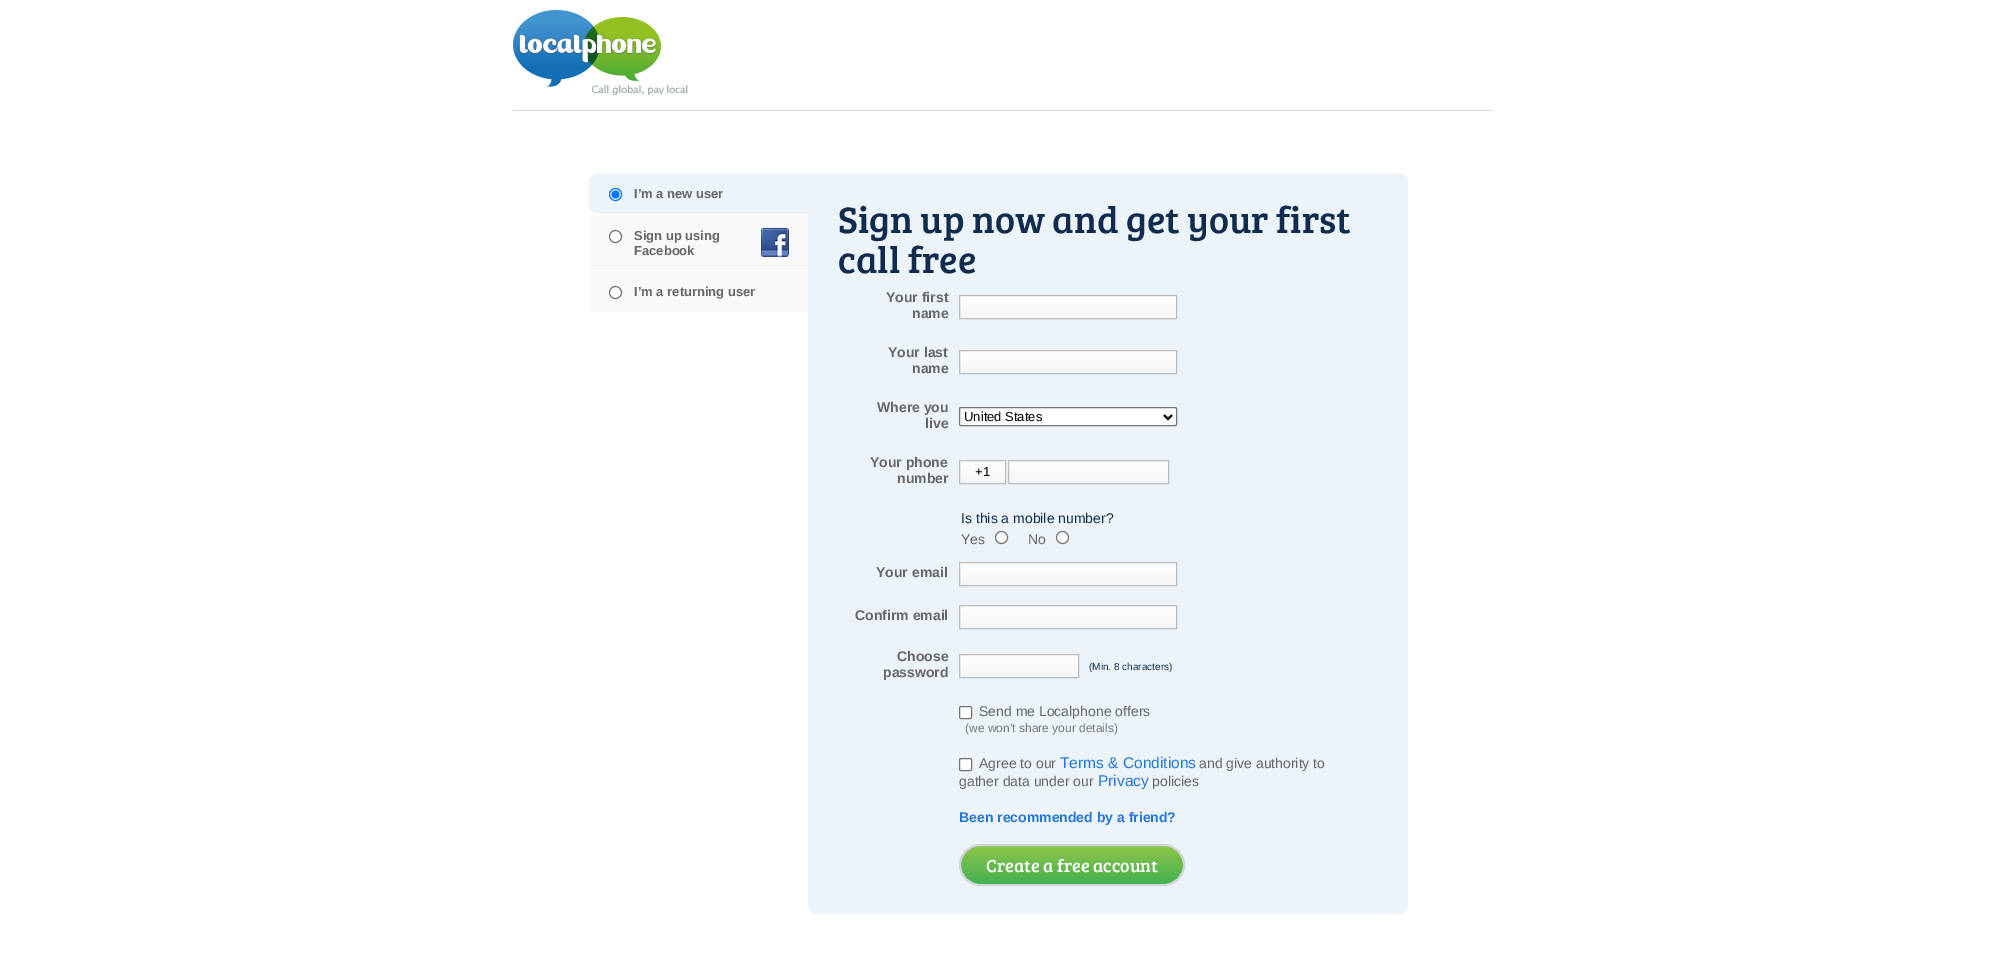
%!PS-Adobe-3.0
%%BoundingBox: 0 0 2006 980
%%LanguageLevel: 3
%%Pages: 1
%%EndComments
%%BeginProlog
/setink { 3 { 255 div 3 1 roll } repeat setrgbcolor } def
/usefont { [ exch dup neg 0 0 3 -1 roll 0 0 ] selectfont } def
/drawtext { setink usefont moveto show } def
/fillbox { setink rectfill } def
/disc { newpath 0 360 arc closepath } def
/rrect { 5 dict begin { /r /h /w /y /x } { exch def } forall
  x r add y moveto x w add y 2 copy h add r arct x w add y h add x 1 index r arct
  x y h add x y r arct x y 2 copy exch w add exch r arct closepath end } def
/drawimage { 5 dict begin { /h /w /y /x /name } { exch def } forall
  gsave x y translate w h scale
  w h 8 [w 0 0 h 0 0] name (r) file false 3 colorimage grestore end } def
%%EndProlog
%%BeginSetup
<< /PageSize [2006 980] >> setpagedevice
%%EndSetup
%%Page: 1 1
0 980 translate 1 -1 scale
4 setmiterlimit
0 0 2006 980 255 255 255 fillbox
(assets/img1.rgb) 513 10 175 85 drawimage
513 110 980 1 204 221 238 fillbox
236 243 249 setink
599 173 moveto 809 173 lineto 809 214 lineto 599 214 lineto 593.5 214 589 209.5 589 204 curveto 589 183 lineto 589 177.5 593.5 173 599 173 curveto closepath fill
255 255 255 setink
615.5 194.5 6 disc gsave fill grestore
0 117 255 setink
stroke
615.5 194.5 4 disc fill
(I’m a new user) 634 198 /LiberationSans-Bold 13 102 102 102 drawtext
589 215 219 55 249 249 249 fillbox
255 255 255 setink
615.5 236.5 6 disc gsave fill grestore
118 118 118 setink
stroke
(assets/img2.rgb) 761 228 28 29 drawimage
(Sign up using) 634 240 /LiberationSans-Bold 13 102 102 102 drawtext
(Facebook) 634 255 /LiberationSans-Bold 13 102 102 102 drawtext
589 271 219 41 249 249 249 fillbox
255 255 255 setink
615.5 292.5 6 disc gsave fill grestore
118 118 118 setink
stroke
(I’m a returning user) 634 296 /LiberationSans-Bold 13 102 102 102 drawtext
236 243 249 setink
808 173 moveto 1398 173 lineto 1403.5 173 1408 177.5 1408 183 curveto 1408 904 lineto 1408 909.5 1403.5 914 1398 914 curveto 818 914 lineto 812.5 914 808 909.5 808 904 curveto closepath fill
(Sign up now and get your first) 838 233 /BreeSerif-Regular 38 15 43 78 drawtext
(call free) 838 273 /BreeSerif-Regular 38 15 43 78 drawtext
(Your first) 886 302 /LiberationSans-Bold 14 102 102 102 drawtext
(name) 912 318 /LiberationSans-Bold 14 102 102 102 drawtext
gsave 960 296 moveto 1176 296 lineto 1176 318 lineto 960 318 lineto closepath clip newpath
<< /ShadingType 2 /ColorSpace /DeviceRGB /Coords [1068 296 1068 318] /Extend [true true] /Function << /FunctionType 2 /Domain [0 1] /C0 [1 1 1] /C1 [0.961 0.961 0.961] /N 1 >> >> shfill grestore
189 188 189 setink
959.5 295.5 217 23 rectstroke
(Your last) 888 357 /LiberationSans-Bold 14 102 102 102 drawtext
(name) 912 373 /LiberationSans-Bold 14 102 102 102 drawtext
gsave 960 351 moveto 1176 351 lineto 1176 373 lineto 960 373 lineto closepath clip newpath
<< /ShadingType 2 /ColorSpace /DeviceRGB /Coords [1068 351 1068 373] /Extend [true true] /Function << /FunctionType 2 /Domain [0 1] /C0 [1 1 1] /C1 [0.961 0.961 0.961] /N 1 >> >> shfill grestore
189 188 189 setink
959.5 350.5 217 23 rectstroke
(Where you) 877 412 /LiberationSans-Bold 14 102 102 102 drawtext
(live) 925 428 /LiberationSans-Bold 14 102 102 102 drawtext
255 255 255 setink
959.5 407.5 217 18 1.5 rrect gsave fill grestore
118 118 118 setink
stroke
0 0 0 setink
2 setlinewidth
1164 415 moveto 1168 419 lineto 1172 415 lineto stroke
(United States) 964 421 /LiberationSans-Regular 13 0 0 0 drawtext
(Your phone) 870 467 /LiberationSans-Bold 14 102 102 102 drawtext
(number) 897 483 /LiberationSans-Bold 14 102 102 102 drawtext
gsave 960 461 moveto 1005 461 lineto 1005 483 lineto 960 483 lineto closepath clip newpath
<< /ShadingType 2 /ColorSpace /DeviceRGB /Coords [983 461 983 483] /Extend [true true] /Function << /FunctionType 2 /Domain [0 1] /C0 [1 1 1] /C1 [0.961 0.961 0.961] /N 1 >> >> shfill grestore
189 188 189 setink
1 setlinewidth
959.5 460.5 46 23 rectstroke
(+1) 975 476 /LiberationSans-Regular 13 0 0 0 drawtext
gsave 1009 461 moveto 1168 461 lineto 1168 483 lineto 1009 483 lineto closepath clip newpath
<< /ShadingType 2 /ColorSpace /DeviceRGB /Coords [1089 461 1089 483] /Extend [true true] /Function << /FunctionType 2 /Domain [0 1] /C0 [1 1 1] /C1 [0.961 0.961 0.961] /N 1 >> >> shfill grestore
189 188 189 setink
1008.5 460.5 160 23 rectstroke
(Is this a mobile number?) 961 523 /LiberationSans-Regular 14 15 43 78 drawtext
(Yes) 961 544 /LiberationSans-Regular 14 102 102 102 drawtext
255 255 255 setink
1001.5 537.5 6 disc gsave fill grestore
118 118 118 setink
stroke
(No) 1028 544 /LiberationSans-Regular 14 102 102 102 drawtext
255 255 255 setink
1062.5 537.5 6 disc gsave fill grestore
118 118 118 setink
stroke
(Your email) 876 577 /LiberationSans-Bold 14 102 102 102 drawtext
gsave 960 563 moveto 1176 563 lineto 1176 585 lineto 960 585 lineto closepath clip newpath
<< /ShadingType 2 /ColorSpace /DeviceRGB /Coords [1068 563 1068 585] /Extend [true true] /Function << /FunctionType 2 /Domain [0 1] /C0 [1 1 1] /C1 [0.961 0.961 0.961] /N 1 >> >> shfill grestore
189 188 189 setink
959.5 562.5 217 23 rectstroke
(Confirm email) 855 620 /LiberationSans-Bold 14 102 102 102 drawtext
gsave 960 606 moveto 1176 606 lineto 1176 628 lineto 960 628 lineto closepath clip newpath
<< /ShadingType 2 /ColorSpace /DeviceRGB /Coords [1068 606 1068 628] /Extend [true true] /Function << /FunctionType 2 /Domain [0 1] /C0 [1 1 1] /C1 [0.961 0.961 0.961] /N 1 >> >> shfill grestore
189 188 189 setink
959.5 605.5 217 23 rectstroke
(Choose) 897 661 /LiberationSans-Bold 14 102 102 102 drawtext
(password) 883 677 /LiberationSans-Bold 14 102 102 102 drawtext
gsave 960 655 moveto 1078 655 lineto 1078 677 lineto 960 677 lineto closepath clip newpath
<< /ShadingType 2 /ColorSpace /DeviceRGB /Coords [1019 655 1019 677] /Extend [true true] /Function << /FunctionType 2 /Domain [0 1] /C0 [1 1 1] /C1 [0.961 0.961 0.961] /N 1 >> >> shfill grestore
189 188 189 setink
959.5 654.5 119 23 rectstroke
(\(Min. 8 characters\)) 1089 670 /LiberationSans-Regular 10 15 43 78 drawtext
255 255 255 setink
959.5 706.5 12 12 1.5 rrect gsave fill grestore
118 118 118 setink
stroke
(Send me Localphone offers) 979 716 /LiberationSans-Regular 14 102 102 102 drawtext
(\(we won’t share your details\)) 965 732 /LiberationSans-Regular 12 119 119 119 drawtext
255 255 255 setink
959.5 758.5 12 12 1.5 rrect gsave fill grestore
118 118 118 setink
stroke
(Agree to our) 979 768 /LiberationSans-Regular 14 102 102 102 drawtext
(Terms & Conditions) 1060 768 /LiberationSans-Regular 15.5 36 118 220 drawtext
(and give authority to) 1199 768 /LiberationSans-Regular 14 102 102 102 drawtext
(gather data under our) 959 786 /LiberationSans-Regular 14 102 102 102 drawtext
(Privacy) 1098 786 /LiberationSans-Regular 15.5 36 118 220 drawtext
(policies) 1152 786 /LiberationSans-Regular 14 102 102 102 drawtext
(Been recommended by a friend?) 959 822 /LiberationSans-Bold 14 36 118 220 drawtext
gsave 961 846 222 38 19 rrect clip newpath
<< /ShadingType 2 /ColorSpace /DeviceRGB /Coords [1072 846 1072 884] /Extend [true true] /Function << /FunctionType 2 /Domain [0 1] /C0 [0.557 0.773 0.29] /C1 [0.259 0.694 0.314] /N 1 >> >> shfill grestore
208 214 219 setink
2 setlinewidth
960 845 224 40 20 rrect stroke
(Create a free account) 986 872 /BreeSerif-Regular 18 255 255 255 drawtext
showpage
%%EOF
